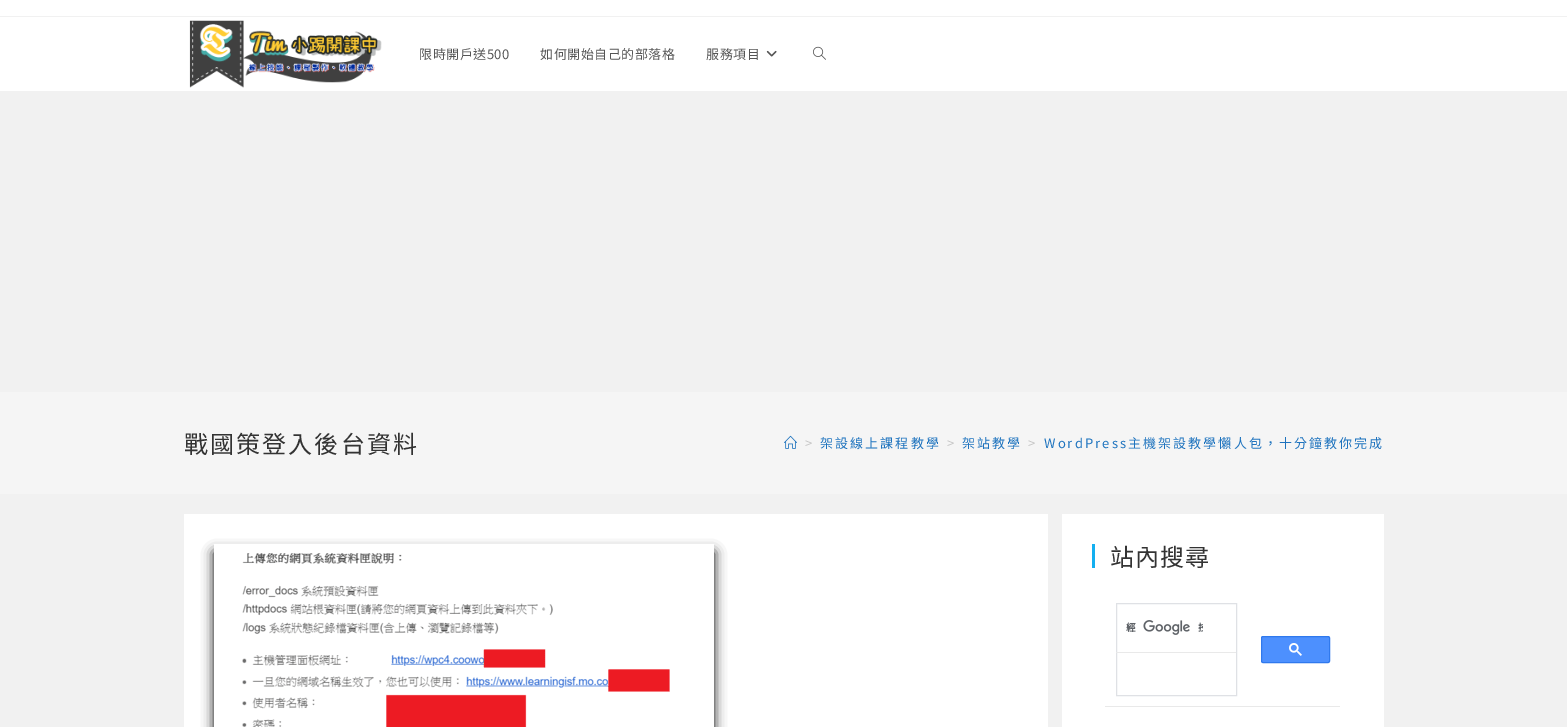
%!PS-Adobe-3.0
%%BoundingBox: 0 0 1567 727
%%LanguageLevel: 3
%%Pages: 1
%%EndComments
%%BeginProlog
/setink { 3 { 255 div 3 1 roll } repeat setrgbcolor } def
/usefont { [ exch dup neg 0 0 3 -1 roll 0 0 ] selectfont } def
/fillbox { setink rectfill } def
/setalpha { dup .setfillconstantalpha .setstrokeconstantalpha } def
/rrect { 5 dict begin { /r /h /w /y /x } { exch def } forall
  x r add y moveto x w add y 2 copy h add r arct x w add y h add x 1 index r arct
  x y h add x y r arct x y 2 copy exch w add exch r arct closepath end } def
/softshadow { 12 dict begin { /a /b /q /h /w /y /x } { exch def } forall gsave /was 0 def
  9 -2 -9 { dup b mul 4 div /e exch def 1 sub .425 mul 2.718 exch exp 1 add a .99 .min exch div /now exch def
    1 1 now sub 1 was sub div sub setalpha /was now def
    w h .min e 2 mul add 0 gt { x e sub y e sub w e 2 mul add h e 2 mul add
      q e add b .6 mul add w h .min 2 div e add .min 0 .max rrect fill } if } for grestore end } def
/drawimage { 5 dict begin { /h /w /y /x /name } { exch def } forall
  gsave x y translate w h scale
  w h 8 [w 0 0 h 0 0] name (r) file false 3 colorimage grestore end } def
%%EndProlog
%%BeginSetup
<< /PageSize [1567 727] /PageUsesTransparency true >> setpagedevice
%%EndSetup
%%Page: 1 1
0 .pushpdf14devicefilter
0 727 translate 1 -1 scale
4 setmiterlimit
0 0 1567 727 241 241 241 fillbox
0 0 1567 16 255 255 255 fillbox
0 17 1567 74 255 255 255 fillbox
(assets/img1.rgb) 189 20 193 68 drawimage
/NotoSansTC-Thin 13 usefont
85 85 85 setink
419 59 moveto 0.5 0 (限時開戶送500) ashow
540 59 moveto 0.5 0 (如何開始自己的部落格) ashow
706 59 moveto 0.5 0 (服務項目) ashow
(assets/img2.rgb) 766 50 11 7 drawimage
(assets/img3.rgb) 813 46 13 14 drawimage
0 392 1567 102 245 245 245 fillbox
/NotoSansTC-Thin 24 usefont
51 51 51 setink
184 453 moveto 2.1 0 (戰國策登入後台資料) ashow
(assets/img4.rgb) 784 435 13 14 drawimage
/NotoSansTC-Thin 13 usefont
198 198 198 setink
805 448 moveto 2.1 0 (>) ashow
30 115 190 setink
820 448 moveto 2.1 0 (架設線上課程教學) ashow
198 198 198 setink
947 448 moveto 2.1 0 (>) ashow
30 115 190 setink
962 448 moveto 2.1 0 (架站教學) ashow
198 198 198 setink
1028 448 moveto 2.1 0 (>) ashow
30 115 190 setink
1044 448 moveto 2.1 0 (WordPress主機架設教學懶人包，十分鐘教你完成) ashow
184 514 864 213 255 255 255 fillbox
gsave
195 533 moveto 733 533 lineto 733 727 lineto 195 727 lineto closepath 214 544 moveto 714 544 lineto 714 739 lineto 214 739 lineto closepath eoclip newpath
0 0 0 setink
214 552 500 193 0 6 1 softshadow
grestore
(assets/img5.rgb) 242 553 428 174 drawimage
1062 514 322 213 255 255 255 fillbox
1092 544 3 24 19 175 240 fillbox
/NotoSansTC-Thin 24 usefont
51 51 51 setink
1110 566 moveto 1 0 (站內搜尋) ashow
223 225 229 setink
1116.5 603.5 120 92 rectstroke
(assets/img6.rgb) 1126 620 77 15 drawimage
1116 652 120 1 233 233 233 fillbox
1105 706 235 1 233 233 233 fillbox
77 144 254 setink
1261.5 636.5 68 26 1.5 rrect gsave fill grestore
48 121 237 setink
stroke
(assets/img7.rgb) 1289 643 13 13 drawimage
.poppdf14devicefilter showpage
%%EOF
